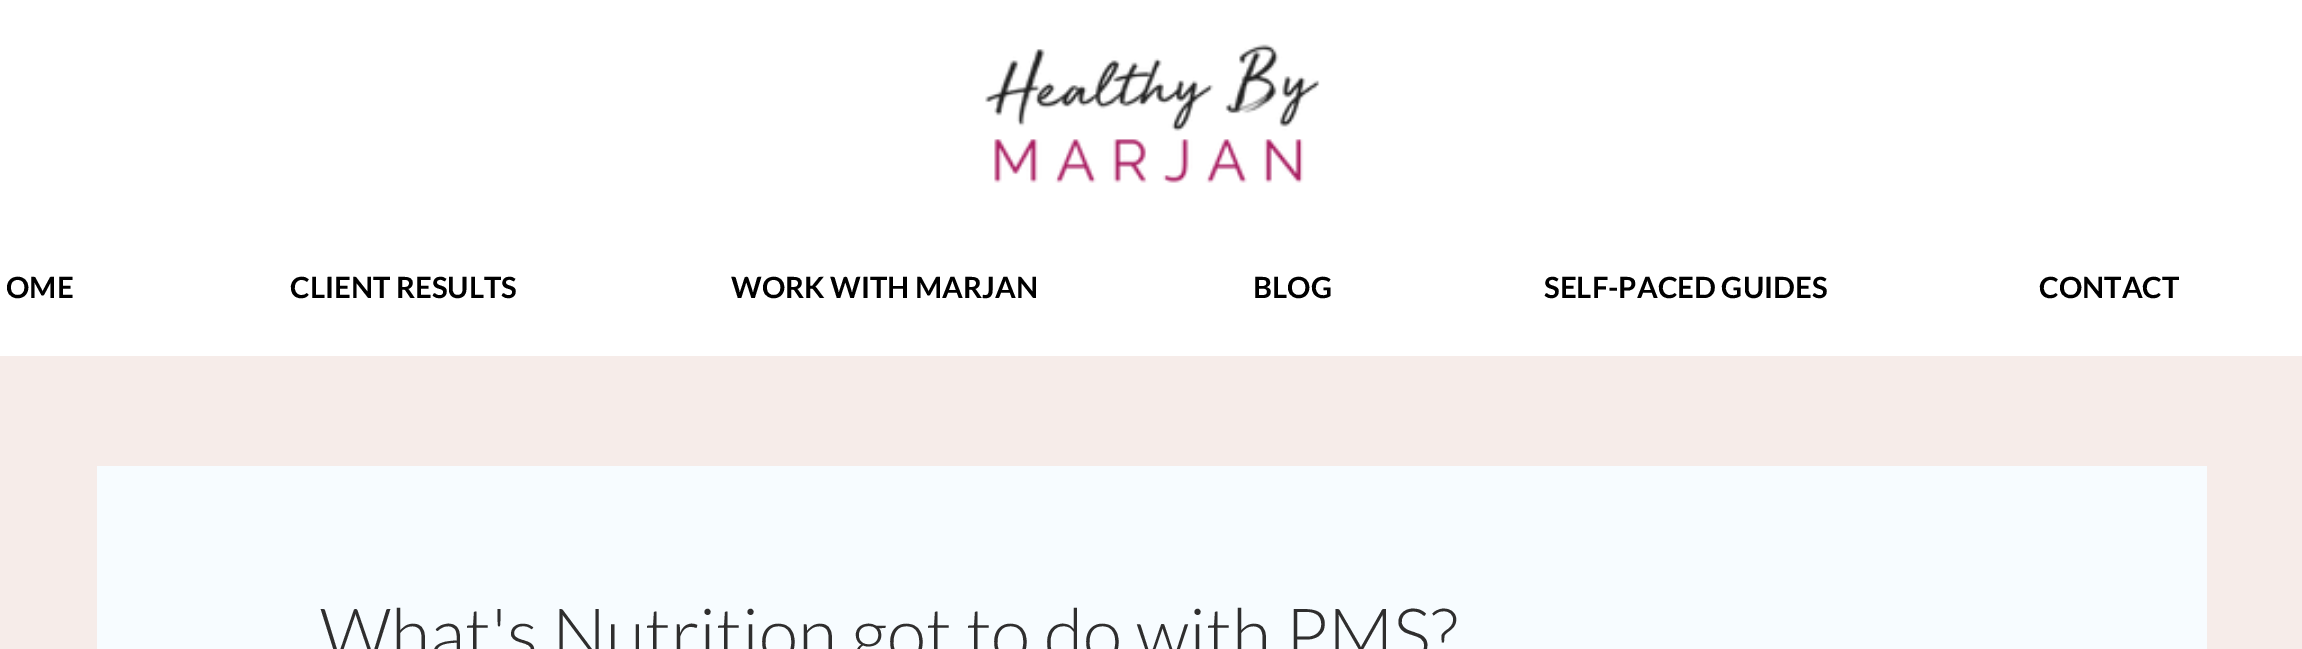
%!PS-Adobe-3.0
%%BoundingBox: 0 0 2302 649
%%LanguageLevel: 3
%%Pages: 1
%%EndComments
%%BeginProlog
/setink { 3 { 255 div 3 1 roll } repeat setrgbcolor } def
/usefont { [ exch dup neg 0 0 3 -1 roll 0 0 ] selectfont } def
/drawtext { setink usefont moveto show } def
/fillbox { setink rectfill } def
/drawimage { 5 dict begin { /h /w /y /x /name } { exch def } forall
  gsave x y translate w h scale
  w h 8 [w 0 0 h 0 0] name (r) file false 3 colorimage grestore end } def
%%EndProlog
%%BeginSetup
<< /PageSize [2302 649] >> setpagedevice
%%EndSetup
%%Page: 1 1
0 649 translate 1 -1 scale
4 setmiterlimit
0 0 2302 649 255 255 255 fillbox
(assets/img1.rgb) 985 44 335 139 drawimage
(OME) 6 298 /Lato-Bold 29.25 0 0 0 drawtext
(CLIENT RESULTS) 290 298 /Lato-Bold 29.25 0 0 0 drawtext
(WORK WITH MARJAN) 731 298 /Lato-Bold 29.25 0 0 0 drawtext
(BLOG) 1253 298 /Lato-Bold 29.25 0 0 0 drawtext
(SELF-PACED GUIDES) 1544 298 /Lato-Bold 29.25 0 0 0 drawtext
(CONTACT) 2039 298 /Lato-Bold 29.25 0 0 0 drawtext
0 356 2302 293 246 236 233 fillbox
97 466 2110 183 247 252 255 fillbox
(What's Nutrition got to do with PMS?) 320 660 /Lato-Light 72 47 46 46 drawtext
showpage
%%EOF
